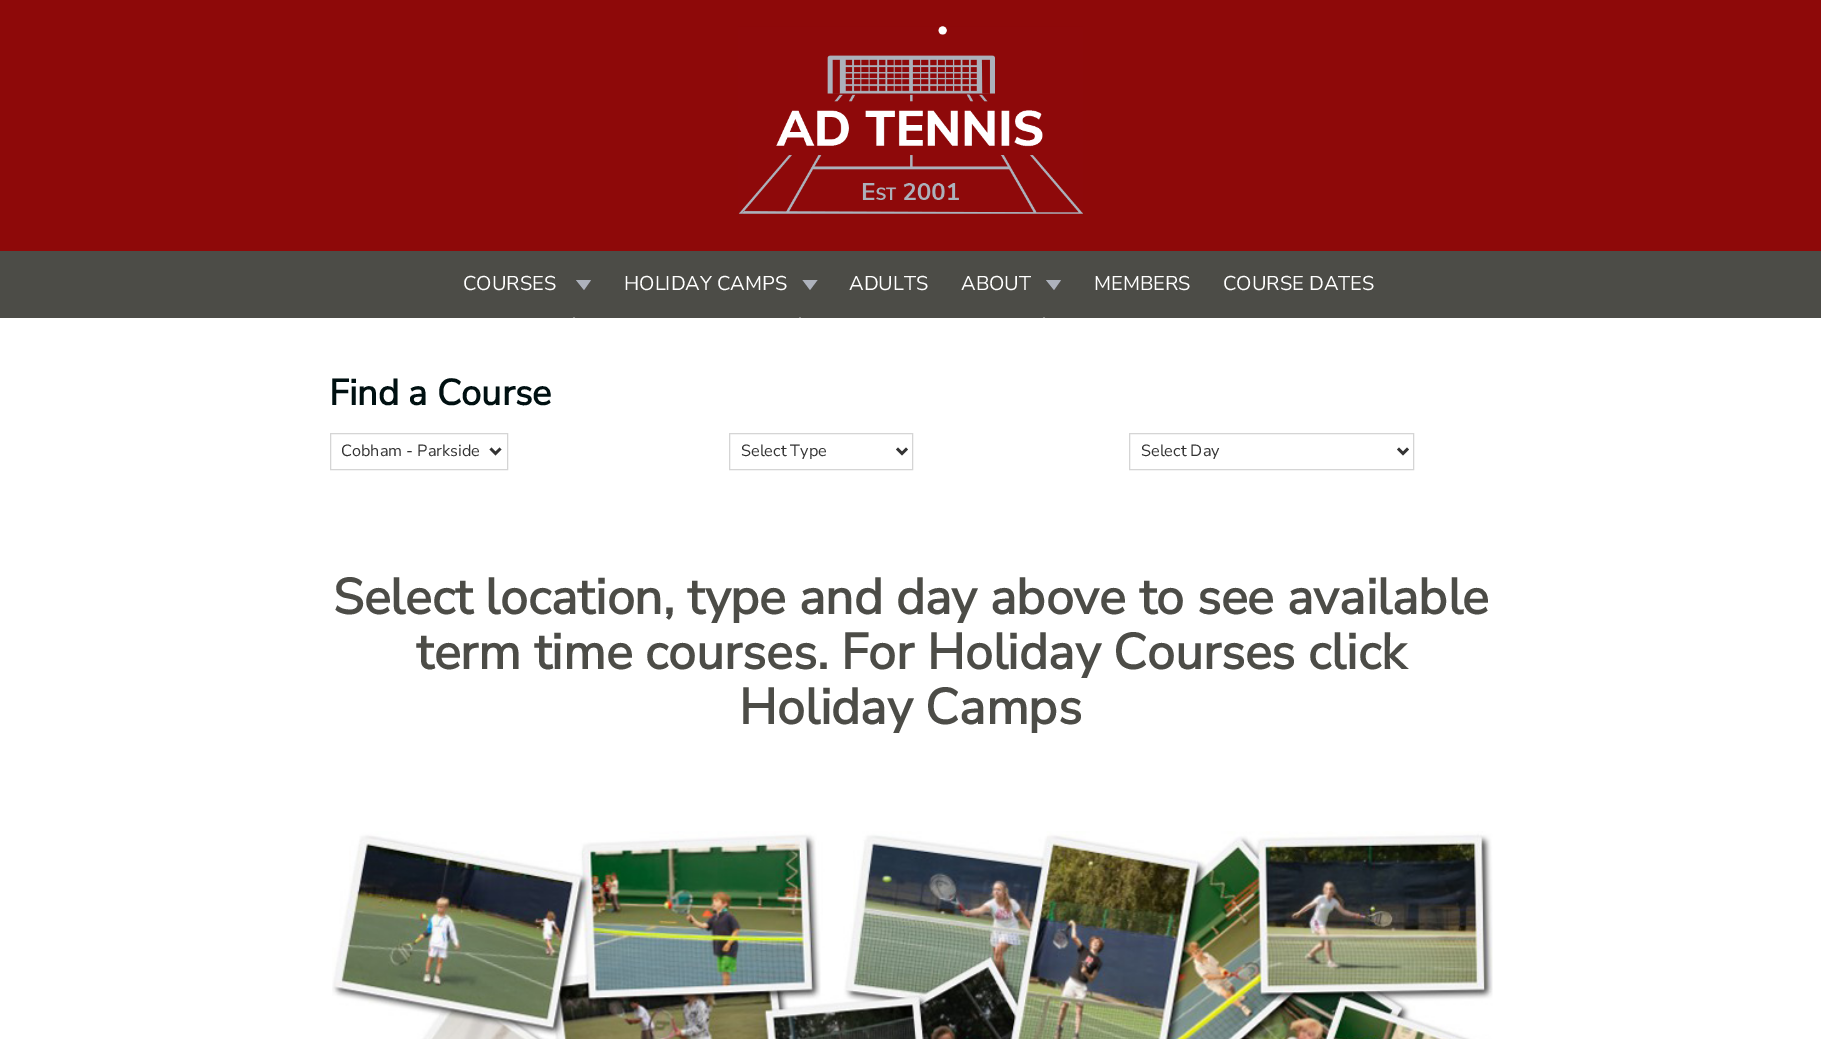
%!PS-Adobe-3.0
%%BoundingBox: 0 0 1821 1039
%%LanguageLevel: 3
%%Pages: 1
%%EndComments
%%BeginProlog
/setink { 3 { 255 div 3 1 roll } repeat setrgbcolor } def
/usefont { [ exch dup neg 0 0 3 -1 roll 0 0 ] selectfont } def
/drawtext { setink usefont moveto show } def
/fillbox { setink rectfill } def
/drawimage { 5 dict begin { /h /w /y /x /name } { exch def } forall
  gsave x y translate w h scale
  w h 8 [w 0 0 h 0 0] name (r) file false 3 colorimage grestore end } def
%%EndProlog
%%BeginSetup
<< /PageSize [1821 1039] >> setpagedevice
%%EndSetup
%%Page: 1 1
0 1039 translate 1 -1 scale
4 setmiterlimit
0 0 1821 1039 255 255 255 fillbox
0 0 1821 251 142 9 9 fillbox
(assets/img1.rgb) 738 26 345 188 drawimage
0 251 1821 67 76 76 71 fillbox
(COURSES) 463 290 /NunitoSans-ExtraLight 20 255 255 255 drawtext
173 178 188 setink
576 280 moveto 591 280 lineto 584 290 lineto closepath fill
255 255 255 setink
584 326 moveto 564 326 lineto 574 317.5 lineto closepath fill
(HOLIDAY CAMPS) 624 290 /NunitoSans-ExtraLight 20 255 255 255 drawtext
173 178 188 setink
802.5 280 moveto 817.5 280 lineto 810 290 lineto closepath fill
255 255 255 setink
810 326 moveto 790 326 lineto 800 317.5 lineto closepath fill
(ADULTS) 849 290 /NunitoSans-ExtraLight 20 255 255 255 drawtext
(ABOUT) 961 290 /NunitoSans-ExtraLight 20 255 255 255 drawtext
173 178 188 setink
1046 280 moveto 1061 280 lineto 1054 290 lineto closepath fill
255 255 255 setink
1054 326 moveto 1034 326 lineto 1044 317.5 lineto closepath fill
(MEMBERS) 1094 290 /NunitoSans-ExtraLight 20 255 255 255 drawtext
(COURSE DATES) 1223 290 /NunitoSans-ExtraLight 20 255 255 255 drawtext
(Find a Course) 329 405 /NunitoSans-Bold 36.25 0 16 17 drawtext
213 213 213 setink
330.5 433.5 177 36 rectstroke
51 51 51 setink
2.5 setlinewidth
490.5 448.5 moveto 495.5 453.5 lineto 500.5 448.5 lineto stroke
(Cobham - Parkside) 341 456 /NunitoSans-ExtraLight 16.25 51 51 51 drawtext
213 213 213 setink
1 setlinewidth
729.5 433.5 183 36 rectstroke
51 51 51 setink
2.5 setlinewidth
897 448.5 moveto 902 453.5 lineto 907 448.5 lineto stroke
(Select Type) 741 456 /NunitoSans-ExtraLight 16.25 51 51 51 drawtext
213 213 213 setink
1 setlinewidth
1129.5 433.5 284 36 rectstroke
51 51 51 setink
2.5 setlinewidth
1398 448.5 moveto 1403 453.5 lineto 1408 448.5 lineto stroke
(Select Day) 1141 456 /NunitoSans-ExtraLight 16.25 51 51 51 drawtext
(Select location, type and day above to see available) 333 614 /NunitoSans-Bold 50 76 76 71 drawtext
(term time courses. For Holiday Courses click) 416 669 /NunitoSans-Bold 50 76 76 71 drawtext
(Holiday Camps) 739 724 /NunitoSans-Bold 50 76 76 71 drawtext
(assets/img2.rgb) 332 831 1161 208 drawimage
showpage
%%EOF
